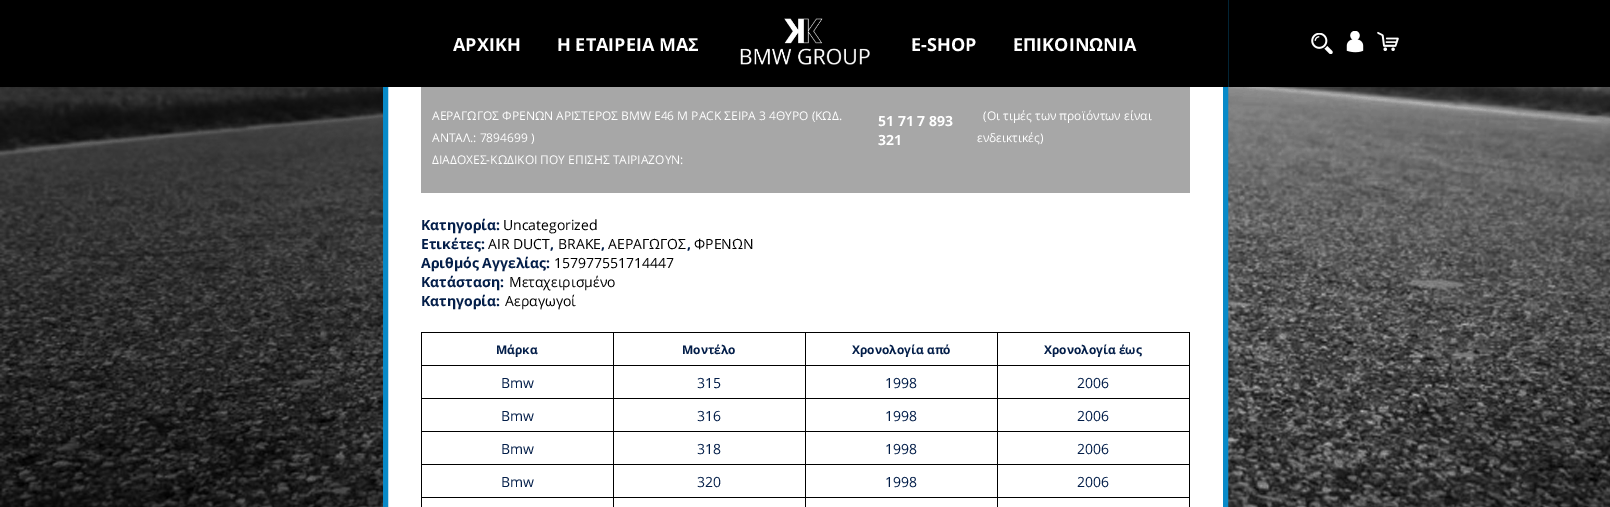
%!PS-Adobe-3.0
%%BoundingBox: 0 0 1610 507
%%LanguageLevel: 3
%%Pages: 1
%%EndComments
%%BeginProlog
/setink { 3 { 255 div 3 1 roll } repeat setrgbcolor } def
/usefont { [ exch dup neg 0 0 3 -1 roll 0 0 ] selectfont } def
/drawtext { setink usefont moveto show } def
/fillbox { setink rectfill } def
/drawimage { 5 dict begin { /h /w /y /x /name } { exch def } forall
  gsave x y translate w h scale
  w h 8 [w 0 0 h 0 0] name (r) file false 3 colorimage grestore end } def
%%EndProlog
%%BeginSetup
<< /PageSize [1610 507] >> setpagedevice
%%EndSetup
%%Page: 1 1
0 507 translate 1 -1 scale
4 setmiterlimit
0 0 1610 507 0 0 0 fillbox
(assets/img5.rgb) 0 87 1610 420 drawimage
388 87 835 420 255 255 255 fillbox
8 138 200 setink
5 setlinewidth
385.5 -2.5 840 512 rectstroke
383 0 845 87 0 0 0 fillbox
(ΑΡΧΙΚΗ) 453 51 /OpenSans-Bold 18 255 255 255 drawtext
(Η ΕΤΑΙΡΕΙΑ ΜΑΣ) 557 51 /OpenSans-Bold 18 255 255 255 drawtext
(assets/img1.rgb) 740 18 130 47 drawimage
(E-SHOP) 911 51 /OpenSans-Bold 18 255 255 255 drawtext
(ΕΠΙΚΟΙΝΩΝΙΑ) 1013 51 /OpenSans-Bold 18 255 255 255 drawtext
(assets/img2.rgb) 1311 33 22 21 drawimage
(assets/img3.rgb) 1346 31 18 22 drawimage
(assets/img4.rgb) 1377 31 22 20 drawimage
421 87 769 106 167 167 167 fillbox
(ΑΕΡΑΓΩΓΟΣ ΦΡΕΝΩΝ ΑΡΙΣΤΕΡΟΣ BMW E46 M PACK ΣΕΙΡΑ 3 4ΘΥΡΟ \(ΚΩΔ.) 432 120 /OpenSans-Regular 12 255 255 255 drawtext
(ΑΝΤΑΛ.: 7894699 \)) 432 142 /OpenSans-Regular 12 255 255 255 drawtext
(ΔΙΑΔΟΧΕΣ-ΚΩΔΙΚΟΙ ΠΟΥ ΕΠΙΣΗΣ ΤΑΙΡΙΑΖΟΥΝ:) 432 164 /OpenSans-Regular 12 255 255 255 drawtext
(51 71 7 893) 878 126 /OpenSans-Bold 14 255 255 255 drawtext
(321) 878 145 /OpenSans-Bold 14 255 255 255 drawtext
(\(Οι τιμές των προϊόντων είναι) 983 120 /OpenSans-Regular 12 255 255 255 drawtext
(ενδεικτικές\)) 977 142 /OpenSans-Regular 12 255 255 255 drawtext
(Κατηγορία:) 421 230 /OpenSans-Bold 14 3 30 73 drawtext
(Uncategorized) 503 230 /OpenSans-Regular 14 0 0 0 drawtext
(Ετικέτες:) 421 249 /OpenSans-Bold 14 3 30 73 drawtext
(AIR DUCT) 488 249 /OpenSans-Regular 14 0 0 0 drawtext
(,) 550 249 /OpenSans-Bold 14 3 30 73 drawtext
(BRAKE) 558 249 /OpenSans-Regular 14 0 0 0 drawtext
(,) 601 249 /OpenSans-Bold 14 3 30 73 drawtext
(ΑΕΡΑΓΩΓΟΣ) 608 249 /OpenSans-Regular 14 0 0 0 drawtext
(,) 687 249 /OpenSans-Bold 14 3 30 73 drawtext
(ΦΡΕΝΩΝ) 694 249 /OpenSans-Regular 14 0 0 0 drawtext
(Αριθμός Αγγελίας:) 421 268 /OpenSans-Bold 14 3 30 73 drawtext
(157977551714447) 554 268 /OpenSans-Regular 14 0 0 0 drawtext
(Κατάσταση:) 421 287 /OpenSans-Bold 14 3 30 73 drawtext
(Μεταχειρισμένο) 509 287 /OpenSans-Regular 14 0 0 0 drawtext
(Κατηγορία:) 421 306 /OpenSans-Bold 14 3 30 73 drawtext
(Αεραγωγοί) 505 306 /OpenSans-Regular 14 0 0 0 drawtext
421 332 769 1 0 0 0 fillbox
1189 332 1 175 0 0 0 fillbox
421 332 1 175 0 0 0 fillbox
(Μάρκα) 496 354 /OpenSans-Bold 12 3 30 73 drawtext
(Μοντέλο) 682 354 /OpenSans-Bold 12 3 30 73 drawtext
(Χρονολογία από) 852 354 /OpenSans-Bold 12 3 30 73 drawtext
(Χρονολογία έως) 1044 354 /OpenSans-Bold 12 3 30 73 drawtext
421 497 769 1 0 0 0 fillbox
421 365 769 1 0 0 0 fillbox
421 398 769 1 0 0 0 fillbox
421 431 769 1 0 0 0 fillbox
421 464 769 1 0 0 0 fillbox
613 332 1 175 0 0 0 fillbox
805 332 1 175 0 0 0 fillbox
997 332 1 175 0 0 0 fillbox
(Bmw) 501 388 /OpenSans-Regular 14 3 30 73 drawtext
(315) 697 388 /OpenSans-Regular 14 3 30 73 drawtext
(1998) 885 388 /OpenSans-Regular 14 3 30 73 drawtext
(2006) 1077 388 /OpenSans-Regular 14 3 30 73 drawtext
(Bmw) 501 421 /OpenSans-Regular 14 3 30 73 drawtext
(316) 697 421 /OpenSans-Regular 14 3 30 73 drawtext
(1998) 885 421 /OpenSans-Regular 14 3 30 73 drawtext
(2006) 1077 421 /OpenSans-Regular 14 3 30 73 drawtext
(Bmw) 501 454 /OpenSans-Regular 14 3 30 73 drawtext
(318) 697 454 /OpenSans-Regular 14 3 30 73 drawtext
(1998) 885 454 /OpenSans-Regular 14 3 30 73 drawtext
(2006) 1077 454 /OpenSans-Regular 14 3 30 73 drawtext
(Bmw) 501 487 /OpenSans-Regular 14 3 30 73 drawtext
(320) 697 487 /OpenSans-Regular 14 3 30 73 drawtext
(1998) 885 487 /OpenSans-Regular 14 3 30 73 drawtext
(2006) 1077 487 /OpenSans-Regular 14 3 30 73 drawtext
showpage
%%EOF
